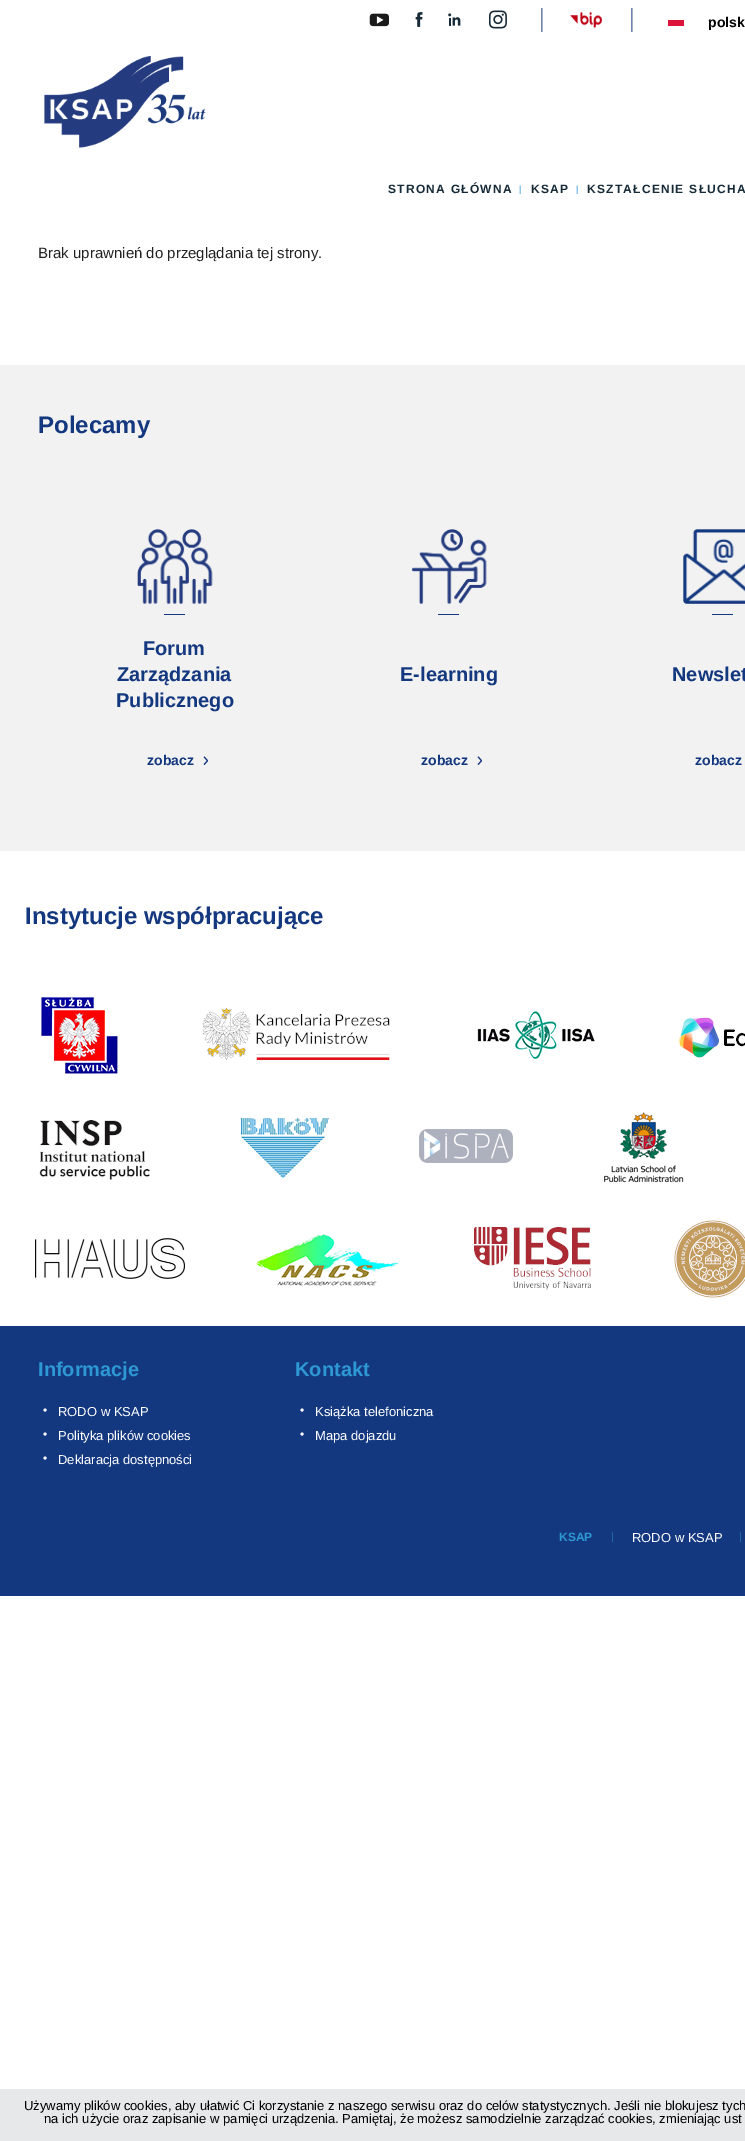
%!PS-Adobe-3.0
%%BoundingBox: 0 0 745 2141
%%LanguageLevel: 3
%%Pages: 1
%%EndComments
%%BeginProlog
/setink { 3 { 255 div 3 1 roll } repeat setrgbcolor } def
/usefont { [ exch dup neg 0 0 3 -1 roll 0 0 ] selectfont } def
/drawtext { setink usefont moveto show } def
/fillbox { setink rectfill } def
/drawimage { 5 dict begin { /h /w /y /x /name } { exch def } forall
  gsave x y translate w h scale
  w h 8 [w 0 0 h 0 0] name (r) file false 3 colorimage grestore end } def
%%EndProlog
%%BeginSetup
<< /PageSize [745 2141] >> setpagedevice
%%EndSetup
%%Page: 1 1
0 2141 translate 1 -1 scale
4 setmiterlimit
0 0 745 2141 255 255 255 fillbox
(assets/img1.rgb) 369 13 20 14 drawimage
(assets/img2.rgb) 415 12 8 15 drawimage
(assets/img3.rgb) 448 13 13 13 drawimage
(assets/img4.rgb) 489 10 18 19 drawimage
(assets/img5.rgb) 541 8 2 24 drawimage
(assets/img6.rgb) 570 12 32 16 drawimage
(assets/img5.rgb) 631 8 2 24 drawimage
668 20 16 6 220 20 60 fillbox
(polsk) 708 27 /LiberationSans-Bold 14 0 0 0 drawtext
(assets/img7.rgb) 44 56 162 92 drawimage
/LiberationSans-Bold 12 usefont
22 42 56 setink
388 193 moveto 1.25 0 (STRONA GŁÓWNA) ashow
(|) 519 192 /LiberationSans-Regular 9 45 152 211 drawtext
/LiberationSans-Bold 12 usefont
22 42 56 setink
531 193 moveto 1.25 0 (KSAP) ashow
(|) 576 192 /LiberationSans-Regular 9 45 152 211 drawtext
/LiberationSans-Bold 12 usefont
22 42 56 setink
587 193 moveto 1.25 0 (KSZTAŁCENIE SŁUCHA) ashow
(Brak uprawnień do przeglądania tej strony.) 38 258 /LiberationSans-Regular 15 34 34 34 drawtext
0 365 745 486 242 242 242 fillbox
(Polecamy) 38 433 /LiberationSans-Bold 24 20 56 127 drawtext
(assets/img8.rgb) 137 529 76 75 drawimage
164 614 21 1 20 56 127 fillbox
(Forum) 143 655 /LiberationSans-Bold 20 20 56 127 drawtext
(Zarządzania) 117 681 /LiberationSans-Bold 20 20 56 127 drawtext
(Publicznego) 116 707 /LiberationSans-Bold 20 20 56 127 drawtext
(zobacz) 147 765 /LiberationSans-Bold 14 20 56 127 drawtext
(assets/img9.rgb) 203 756 5 9 drawimage
(assets/img10.rgb) 411 529 76 75 drawimage
438 614 21 1 20 56 127 fillbox
(E-learning) 400 681 /LiberationSans-Bold 20 20 56 127 drawtext
(zobacz) 421 765 /LiberationSans-Bold 14 20 56 127 drawtext
(assets/img9.rgb) 477 756 5 9 drawimage
(assets/img11.rgb) 683 529 62 75 drawimage
712 614 21 1 20 56 127 fillbox
(Newslet) 672 681 /LiberationSans-Bold 20 20 56 127 drawtext
(zobacz) 695 765 /LiberationSans-Bold 14 20 56 127 drawtext
(Instytucje współpracujące) 25 924 /LiberationSans-Bold 24 20 56 127 drawtext
(assets/img12.rgb) 41 997 77 77 drawimage
(assets/img13.rgb) 202 1008 188 53 drawimage
(assets/img14.rgb) 477 1011 118 48 drawimage
(assets/img15.rgb) 678 1017 67 41 drawimage
(assets/img16.rgb) 39 1120 111 60 drawimage
(assets/img17.rgb) 241 1118 88 60 drawimage
(assets/img18.rgb) 419 1129 94 34 drawimage
(assets/img19.rgb) 604 1112 80 71 drawimage
(assets/img20.rgb) 35 1238 150 41 drawimage
(assets/img21.rgb) 256 1234 143 52 drawimage
(assets/img22.rgb) 474 1227 117 63 drawimage
(assets/img23.rgb) 674 1220 71 78 drawimage
0 1326 745 270 20 56 127 fillbox
(Informacje) 38 1376 /LiberationSans-Bold 20 45 152 211 drawtext
(•) 43 1414 /LiberationSans-Regular 12 255 255 255 drawtext
(RODO w KSAP) 58 1416 /LiberationSans-Regular 13 255 255 255 drawtext
(•) 43 1438 /LiberationSans-Regular 12 255 255 255 drawtext
(Polityka plików cookies) 58 1440 /LiberationSans-Regular 13 255 255 255 drawtext
(•) 43 1462 /LiberationSans-Regular 12 255 255 255 drawtext
(Deklaracja dostępności) 58 1464 /LiberationSans-Regular 13 255 255 255 drawtext
(Kontakt) 295 1376 /LiberationSans-Bold 20 45 152 211 drawtext
(•) 300 1414 /LiberationSans-Regular 12 255 255 255 drawtext
(Książka telefoniczna) 315 1416 /LiberationSans-Regular 13 255 255 255 drawtext
(•) 300 1438 /LiberationSans-Regular 12 255 255 255 drawtext
(Mapa dojazdu) 315 1440 /LiberationSans-Regular 13 255 255 255 drawtext
(KSAP) 559 1541 /LiberationSans-Bold 12 45 152 211 drawtext
612 1532 1 10 32 104 169 fillbox
(RODO w KSAP) 632 1542 /LiberationSans-Regular 13 255 255 255 drawtext
740 1532 1 10 32 104 169 fillbox
0 2089 745 52 231 232 234 fillbox
(Używamy plików cookies, aby ułatwić Ci korzystanie z naszego serwisu oraz do celów statystycznych. Jeśli nie blokujesz tych) 24 2110 /LiberationSans-Regular 13 0 0 0 drawtext
(na ich użycie oraz zapisanie w pamięci urządzenia. Pamiętaj, że możesz samodzielnie zarządzać cookies, zmieniając ust) 44 2123 /LiberationSans-Regular 13 0 0 0 drawtext
showpage
%%EOF
